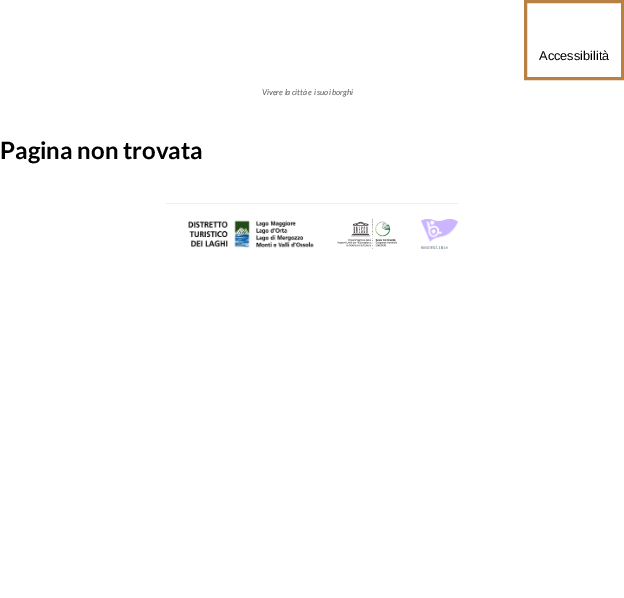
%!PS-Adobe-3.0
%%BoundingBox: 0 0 624 598
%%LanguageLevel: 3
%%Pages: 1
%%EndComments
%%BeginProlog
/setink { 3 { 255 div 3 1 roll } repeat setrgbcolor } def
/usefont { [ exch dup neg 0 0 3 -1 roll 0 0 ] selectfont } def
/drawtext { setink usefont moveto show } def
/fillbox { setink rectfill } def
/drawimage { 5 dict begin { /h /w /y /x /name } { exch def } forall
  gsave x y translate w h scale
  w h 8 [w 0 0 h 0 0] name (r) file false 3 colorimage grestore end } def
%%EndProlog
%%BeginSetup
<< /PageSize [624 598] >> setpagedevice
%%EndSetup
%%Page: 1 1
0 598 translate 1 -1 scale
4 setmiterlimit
0 0 624 598 255 255 255 fillbox
184 128 66 setink
3 setlinewidth
525.5 1.5 97 77 rectstroke
(Accessibilità) 539 60 /LiberationSans-Regular 12.75 0 0 0 drawtext
(Vivere la città e i suoi borghi) 262 95 /Lato-Italic 8 88 88 88 drawtext
(Pagina non trovata) 0 159 /Lato-Bold 24 0 0 0 drawtext
166 203 292 1 238 238 238 fillbox
(assets/img1.rgb) 188 220 126 28 drawimage
(assets/img2.rgb) 337 219 60 30 drawimage
(assets/img3.rgb) 421 219 37 30 drawimage
showpage
%%EOF
